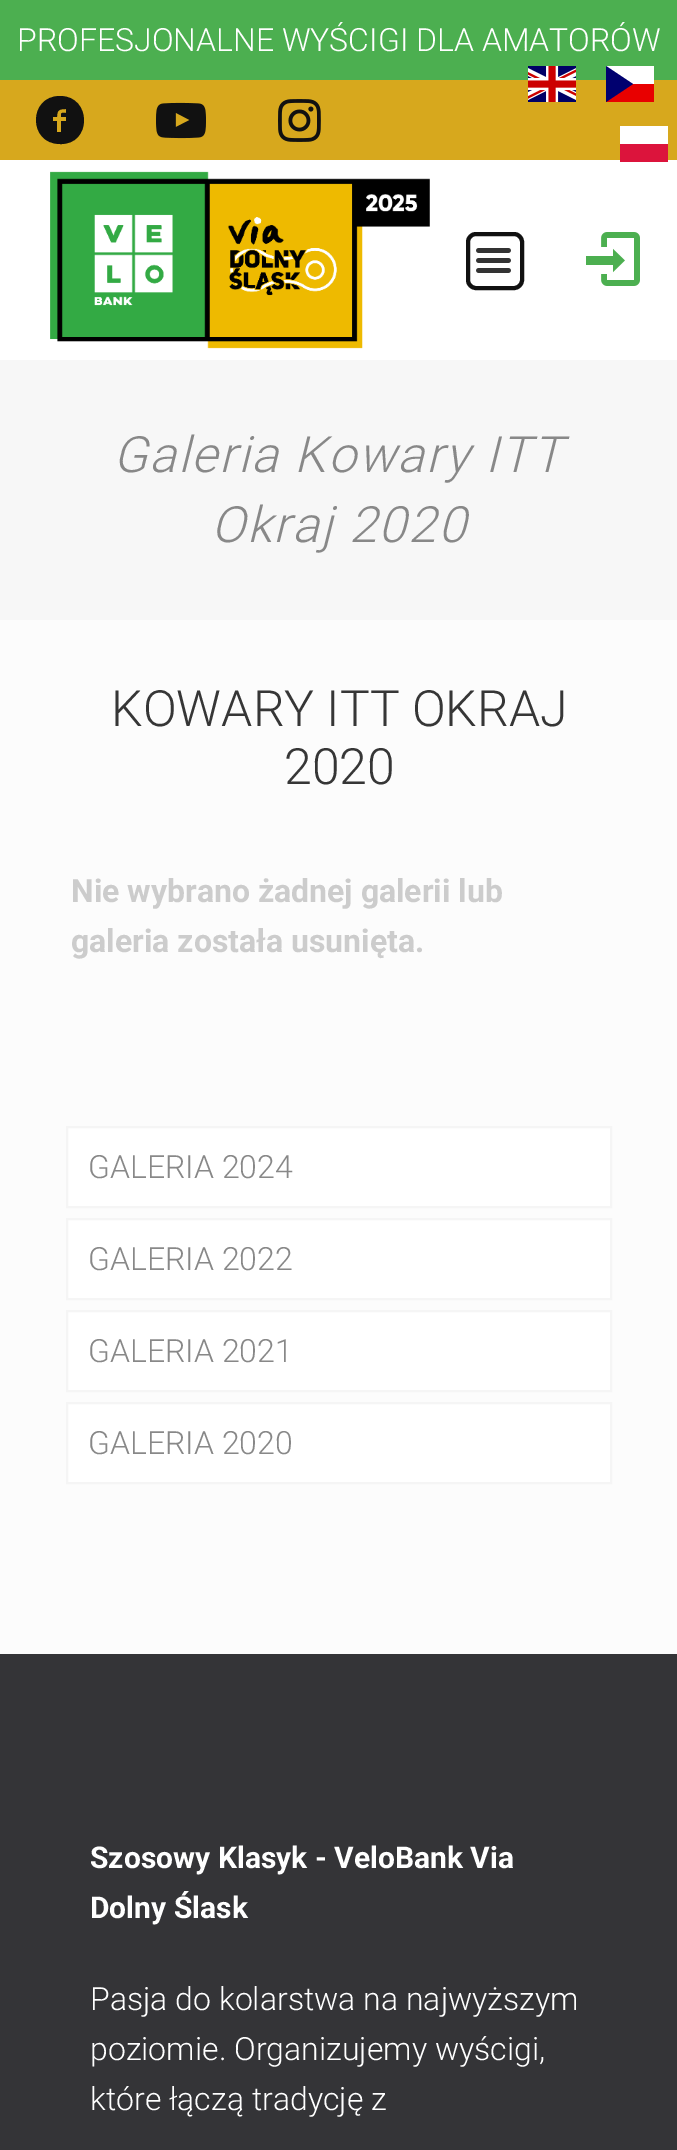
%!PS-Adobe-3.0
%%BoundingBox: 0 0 677 2150
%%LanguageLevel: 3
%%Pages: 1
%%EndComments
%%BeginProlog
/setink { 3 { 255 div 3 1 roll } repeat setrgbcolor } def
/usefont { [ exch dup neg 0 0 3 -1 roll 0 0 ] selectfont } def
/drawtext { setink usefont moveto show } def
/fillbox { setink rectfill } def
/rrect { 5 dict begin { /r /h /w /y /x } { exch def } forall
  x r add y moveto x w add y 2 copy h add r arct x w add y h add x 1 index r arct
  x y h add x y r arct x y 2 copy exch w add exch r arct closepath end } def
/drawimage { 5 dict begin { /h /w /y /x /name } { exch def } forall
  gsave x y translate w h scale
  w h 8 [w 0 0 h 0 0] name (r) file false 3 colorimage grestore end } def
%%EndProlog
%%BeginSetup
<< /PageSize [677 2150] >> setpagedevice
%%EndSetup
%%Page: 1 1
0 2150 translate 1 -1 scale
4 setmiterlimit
0 0 677 2150 252 252 252 fillbox
0 0 677 80 76 175 80 fillbox
(PROFESJONALNE WYŚCIGI DLA AMATORÓW) 17 51 /Roboto-Light 32 255 255 255 drawtext
0 80 677 80 215 168 29 fillbox
17 17 17 setink
60 96 moveto 92 96 92 145 60 144 curveto 28 144 28 96 60 96 curveto closepath 66 113 moveto 66 109 lineto 59 109 57 110 57 117 curveto 53 117 lineto 53 121 lineto 57 121 lineto 57 132 lineto 61 132 lineto 61 121 lineto 66 121 lineto 66 117 lineto 61 117 lineto 61 112 61 113 66 113 curveto closepath fill
(assets/img1.rgb) 156 102 50 37 drawimage
(assets/img2.rgb) 278 99 43 43 drawimage
(assets/img3.rgb) 528 66 48 36 drawimage
606 66 48 18 255 255 255 fillbox
606 84 48 18 232 0 0 fillbox
0 0 111 setink
606 66 moveto 633 84 lineto 606 102 lineto closepath eofill
620 126 48 18 255 255 255 fillbox
0 160 677 200 255 255 255 fillbox
620 144 48 18 220 20 60 fillbox
(assets/img4.rgb) 50 171 380 178 drawimage
17 17 17 setink
4 setlinewidth
468 234 54 54 8 rrect stroke
(assets/img5.rgb) 476 248 35 25 drawimage
(assets/img6.rgb) 586 232 54 54 drawimage
0 360 677 260 247 247 247 fillbox
/Roboto-LightItalic 50 usefont
136 136 136 setink
113 472 moveto 2 0 (Galeria Kowary ITT) ashow
211 542 moveto 2 0 (Okraj 2020) ashow
(KOWARY ITT OKRAJ) 111 726 /Roboto-Light 50 54 54 54 drawtext
(2020) 284 784 /Roboto-Light 50 54 54 54 drawtext
(Nie wybrano żadnej galerii lub) 71 902 /Roboto-Bold 32 204 204 204 drawtext
(galeria została usunięta.) 71 952 /Roboto-Bold 32 204 204 204 drawtext
255 255 255 setink
67 1127 moveto 611 1127 lineto 611 1207 lineto 67 1207 lineto closepath gsave fill grestore
245 245 245 setink
2 setlinewidth
stroke
(GALERIA 2024) 88 1178 /Roboto-Light 32 136 136 136 drawtext
255 255 255 setink
67 1219 moveto 611 1219 lineto 611 1299 lineto 67 1299 lineto closepath gsave fill grestore
245 245 245 setink
stroke
(GALERIA 2022) 88 1270 /Roboto-Light 32 136 136 136 drawtext
255 255 255 setink
67 1311 moveto 611 1311 lineto 611 1391 lineto 67 1391 lineto closepath gsave fill grestore
245 245 245 setink
stroke
(GALERIA 2021) 88 1362 /Roboto-Light 32 136 136 136 drawtext
255 255 255 setink
67 1403 moveto 611 1403 lineto 611 1483 lineto 67 1483 lineto closepath gsave fill grestore
245 245 245 setink
stroke
(GALERIA 2020) 88 1454 /Roboto-Light 32 136 136 136 drawtext
0 1654 677 496 52 52 55 fillbox
(Szosowy Klasyk - VeloBank Via) 90 1868 /Roboto-Bold 30 255 255 255 drawtext
(Dolny Ślask) 90 1918 /Roboto-Bold 30 255 255 255 drawtext
(Pasja do kolarstwa na najwyższym) 90 2010 /Roboto-Light 32 255 255 255 drawtext
(poziomie. Organizujemy wyścigi,) 90 2060 /Roboto-Light 32 255 255 255 drawtext
(które łączą tradycję z) 90 2110 /Roboto-Light 32 255 255 255 drawtext
showpage
%%EOF
